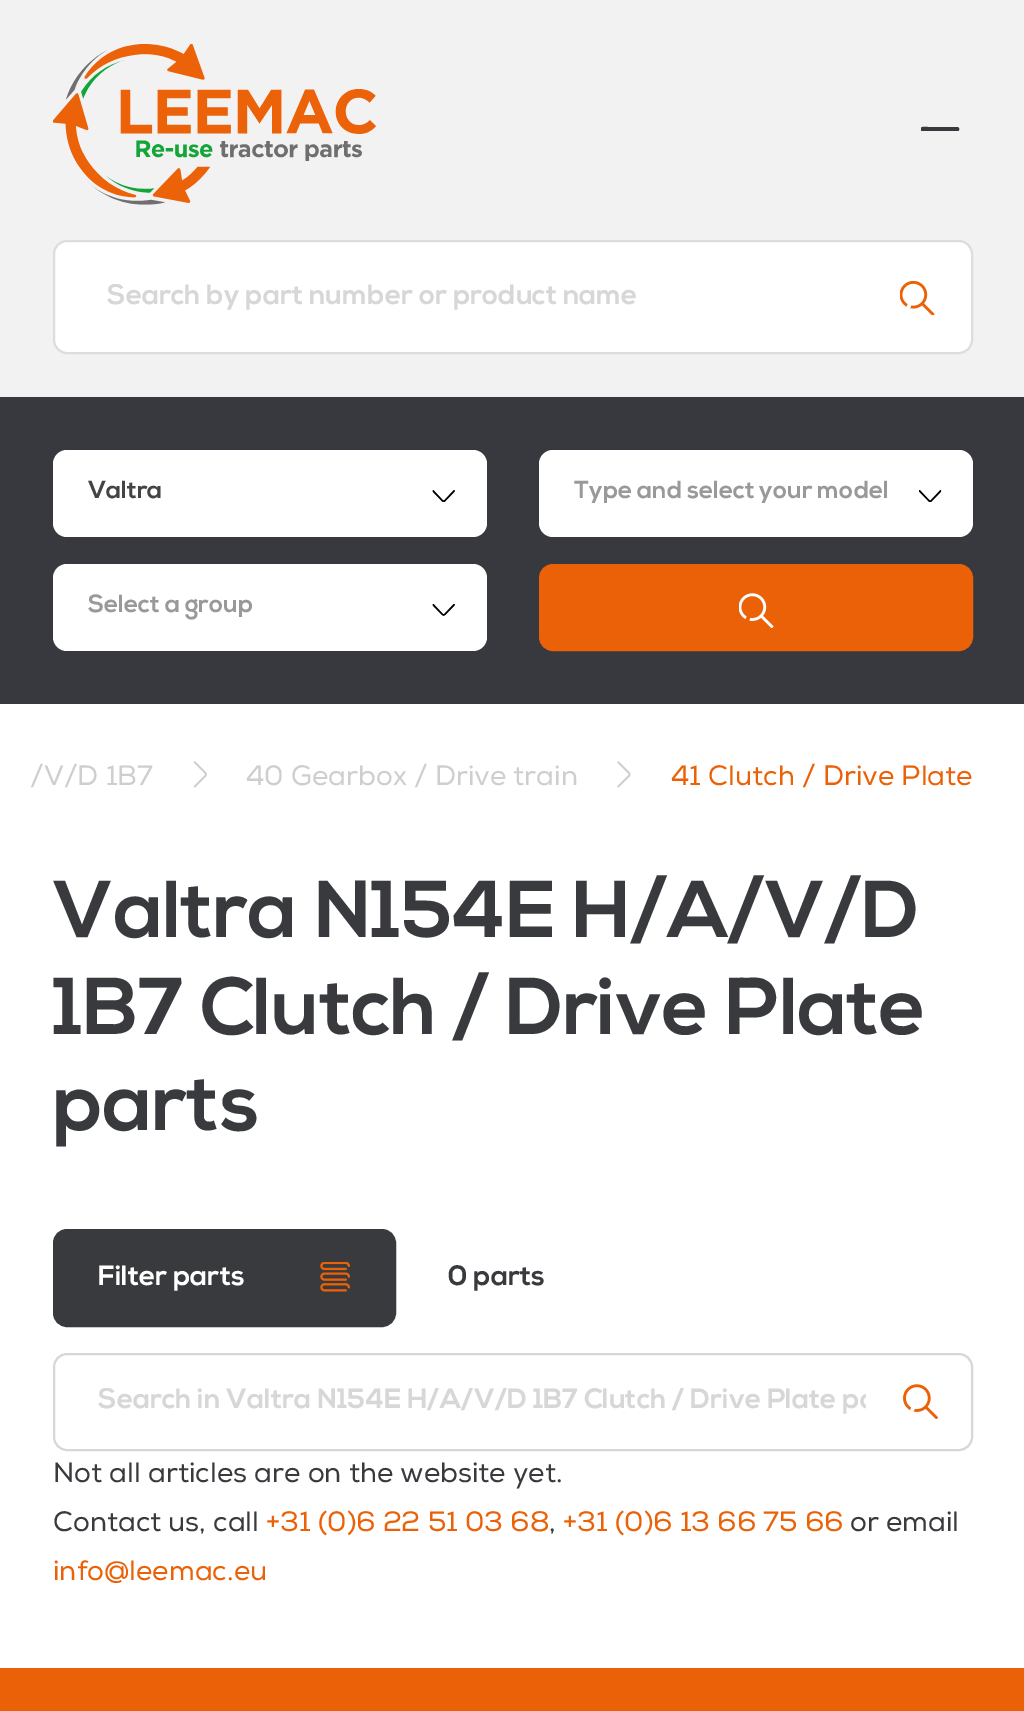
%!PS-Adobe-3.0
%%BoundingBox: 0 0 1024 1711
%%LanguageLevel: 3
%%Pages: 1
%%EndComments
%%BeginProlog
/setink { 3 { 255 div 3 1 roll } repeat setrgbcolor } def
/usefont { [ exch dup neg 0 0 3 -1 roll 0 0 ] selectfont } def
/drawtext { setink usefont moveto show } def
/fillbox { setink rectfill } def
/rrect { 5 dict begin { /r /h /w /y /x } { exch def } forall
  x r add y moveto x w add y 2 copy h add r arct x w add y h add x 1 index r arct
  x y h add x y r arct x y 2 copy exch w add exch r arct closepath end } def
/drawimage { 5 dict begin { /h /w /y /x /name } { exch def } forall
  gsave x y translate w h scale
  w h 8 [w 0 0 h 0 0] name (r) file false 3 colorimage grestore end } def
%%EndProlog
%%BeginSetup
<< /PageSize [1024 1711] >> setpagedevice
%%EndSetup
%%Page: 1 1
0 1711 translate 1 -1 scale
4 setmiterlimit
0 0 1024 1711 255 255 255 fillbox
0 0 1024 397 242 242 242 fillbox
(assets/img1.rgb) 53 44 323 161 drawimage
gsave
921 103 52 28 rectclip
56 58 62 setink
957.5 131.5 moveto 922 131.5 lineto 921 131 921 130.5 920.5 130 curveto 919.5 125.5 926.5 127 928 127 curveto 958 127 lineto 959 128 lineto 959.5 129 959 131.5 957.5 131.5 curveto closepath fill
grestore
255 255 255 setink
54 241 918 112 13 rrect gsave fill grestore
221 221 221 setink
2 setlinewidth
stroke
gsave
107 284 759 28 rectclip
(Search by part number or product name) 107 304 /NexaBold-Bold 28 215 215 216 drawtext
grestore
(assets/img2.rgb) 900 280 35 35 drawimage
0 397 1024 307 56 57 62 fillbox
255 255 255 setink
53 450 434 87 14 rrect fill
(Valtra) 88 498 /NexaBold-Bold 24.5 68 68 68 drawtext
(assets/img3.rgb) 432 490 23 12 drawimage
255 255 255 setink
539 450 434 87 14 rrect fill
(Type and select your model) 574 498 /NexaBold-Bold 24.5 153 153 153 drawtext
(assets/img4.rgb) 919 490 23 12 drawimage
255 255 255 setink
53 564 434 87 14 rrect fill
(Select a group) 88 612 /NexaBold-Bold 24.5 153 153 153 drawtext
(assets/img5.rgb) 432 604 23 12 drawimage
235 97 8 setink
540 565 432 85 13 rrect gsave fill grestore
stroke
(assets/img6.rgb) 739 593 35 35 drawimage
(/V/D 1B7) 30 785 /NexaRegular-Regular 28 205 206 208 drawtext
(assets/img7.rgb) 193 761 14 27 drawimage
(40 Gearbox / Drive train) 246 785 /NexaRegular-Regular 28 205 206 208 drawtext
(assets/img8.rgb) 617 761 14 27 drawimage
(41 Clutch / Drive Plate) 671 785 /NexaRegular-Regular 28 235 97 8 drawtext
(Valtra N154E H/A/V/D) 53 937 /NexaBold-Bold 80.5 56 58 62 drawtext
(1B7 Clutch / Drive Plate) 53 1034 /NexaBold-Bold 80.5 56 58 62 drawtext
(parts) 53 1130 /NexaBold-Bold 80.5 56 58 62 drawtext
54 1230 341 96 13 rrect gsave fill grestore
stroke
(Filter parts) 98 1285 /NexaBold-Bold 28 255 255 255 drawtext
(assets/img9.rgb) 320 1262 30 30 drawimage
(0 parts) 448 1285 /NexaBold-Bold 28 56 58 62 drawtext
215 215 216 setink
54 1354 918 96 13 rrect stroke
gsave
98 1388 768 28 rectclip
(Search in Valtra N154E H/A/V/D 1B7 Clutch / Drive Plate pa) 98 1408 /NexaBold-Bold 28 215 215 216 drawtext
grestore
(assets/img10.rgb) 903 1384 35 35 drawimage
(Not all articles are on the website yet.) 53 1482 /NexaRegular-Regular 28 56 58 62 drawtext
(Contact us, call) 53 1531 /NexaRegular-Regular 28 56 58 62 drawtext
(+31 \(0\)6 22 51 03 68) 266 1531 /NexaRegular-Regular 28 235 97 8 drawtext
(,) 549 1531 /NexaRegular-Regular 28 56 58 62 drawtext
(+31 \(0\)6 13 66 75 66) 563 1531 /NexaRegular-Regular 28 235 97 8 drawtext
(or email) 850 1531 /NexaRegular-Regular 28 56 58 62 drawtext
(info@leemac.eu) 53 1580 /NexaRegular-Regular 28 235 97 8 drawtext
0 1668 1024 43 235 97 8 fillbox
showpage
%%EOF
